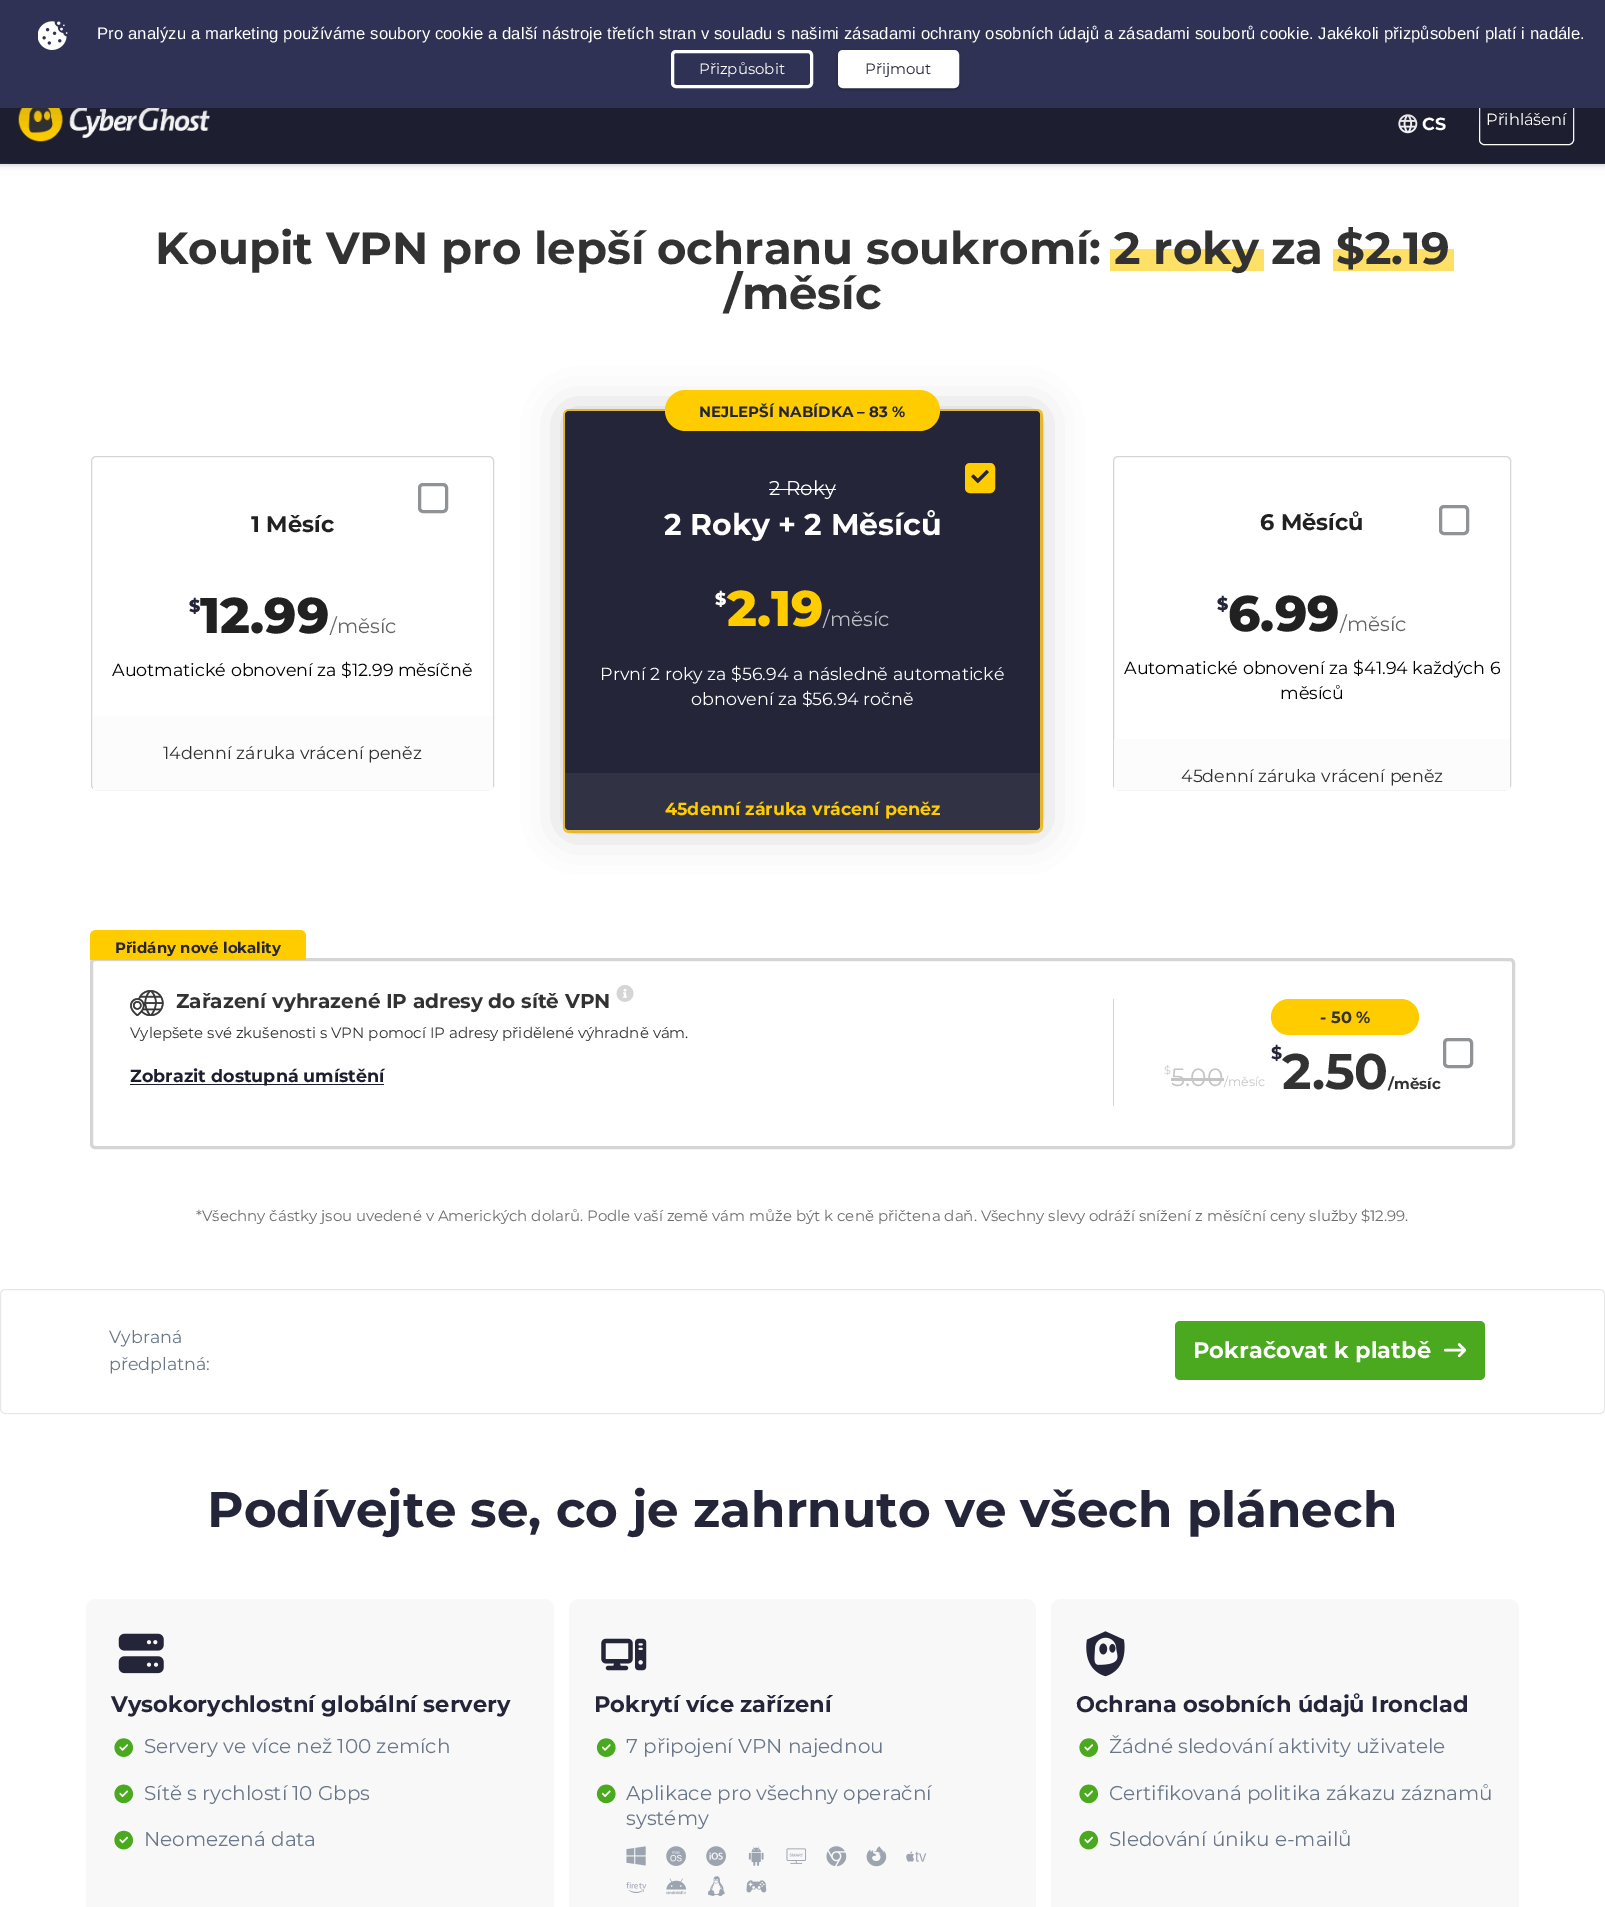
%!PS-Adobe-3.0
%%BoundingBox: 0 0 1605 1907
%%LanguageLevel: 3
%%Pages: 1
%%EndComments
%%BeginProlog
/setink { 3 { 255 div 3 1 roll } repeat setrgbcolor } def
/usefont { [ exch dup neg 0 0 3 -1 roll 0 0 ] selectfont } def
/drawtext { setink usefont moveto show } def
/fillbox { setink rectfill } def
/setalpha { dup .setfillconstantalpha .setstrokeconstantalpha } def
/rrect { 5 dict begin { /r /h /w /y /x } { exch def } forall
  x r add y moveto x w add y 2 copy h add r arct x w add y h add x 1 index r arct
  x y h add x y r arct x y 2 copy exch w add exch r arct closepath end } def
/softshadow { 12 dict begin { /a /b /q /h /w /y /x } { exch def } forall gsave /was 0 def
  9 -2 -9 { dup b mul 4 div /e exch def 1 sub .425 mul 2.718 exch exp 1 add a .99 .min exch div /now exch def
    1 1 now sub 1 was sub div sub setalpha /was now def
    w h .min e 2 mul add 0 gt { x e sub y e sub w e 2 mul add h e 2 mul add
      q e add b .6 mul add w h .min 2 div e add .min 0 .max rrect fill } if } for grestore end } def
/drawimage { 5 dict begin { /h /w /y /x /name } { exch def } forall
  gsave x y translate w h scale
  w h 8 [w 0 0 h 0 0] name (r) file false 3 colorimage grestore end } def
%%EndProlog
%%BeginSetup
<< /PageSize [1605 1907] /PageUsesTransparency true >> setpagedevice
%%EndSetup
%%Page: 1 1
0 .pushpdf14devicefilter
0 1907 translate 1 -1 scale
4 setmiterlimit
0 0 1605 1907 255 255 255 fillbox
0 0 0 setink
0 76 1605 89 0 3 0.2 softshadow
0 108 1605 55 29 30 47 fillbox
(assets/img2.rgb) 18 108 192 34 drawimage
(assets/img3.rgb) 1398 114 20 20 drawimage
255 255 255 setink
1479.5 93.5 94 51 4.5 rrect stroke
24 25 51 setink
0 10 1605 108 0 12.5 0.15 softshadow
0 0 1605 108 47 50 84 fillbox
(assets/img1.rgb) 38 21 30 29 drawimage
/LiberationSans-Regular 16.67 usefont
255 255 255 setink
97 39 moveto 0.08 0 (Pro analýzu a marketing používáme soubory cookie a další nástroje třetích stran v souladu s našimi zásadami ochrany osobních údajů a zásadami souborů cookie. Jakékoli přizpůsobení platí i nadále.) ashow
3 setlinewidth
672.5 51.5 139 35 3.5 rrect stroke
(Přizpůsobit) 699 74 /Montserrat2-Thin 15 255 255 255 drawtext
0 0 0 setink
838 51 121 38 5 3 0.12 softshadow
838 53 121 37 5 1 0.14 softshadow
840 56 116 33 2.5 0.5 0.2 softshadow
255 255 255 setink
839.5 51.5 118 35 3.5 rrect gsave fill grestore
stroke
(Přijmout) 865 74 /Montserrat2-Thin 15 36 37 56 drawtext
0 163 1605 1 40 41 57 fillbox
(CS) 1422 130 /Montserrat-Thin 17.5 255 255 255 drawtext
(Přihlášení) 1486 125 /Montserrat2-Thin 16.25 255 255 255 drawtext
1110 249 154 22 255 224 102 fillbox
(Koupit VPN pro lepší ochranu soukromí: 2 roky) 155 264 /Montserrat-Thin 45 50 50 50 drawtext
1333 249 121 22 255 224 102 fillbox
(za $2.19) 1271 264 /Montserrat-Thin 45 50 50 50 drawtext
(/měsíc) 724 309 /Montserrat-Thin 45 50 50 50 drawtext
213 213 213 setink
1 setlinewidth
91.5 456.5 402 333 4.5 rrect stroke
144 147 149 setink
3 setlinewidth
419.5 484.5 27 27 3.5 rrect stroke
(1 Měsíc) 251 532 /Montserrat-Thin 22.5 33 33 33 drawtext
($) 189 612 /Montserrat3-Thin 17.5 36 37 56 drawtext
(12.99) 200 633 /Montserrat3-Thin 50 33 33 33 drawtext
(/měsíc) 330 633 /Montserrat2-Thin 20 100 100 100 drawtext
(Auotmatické obnovení za $12.99 měsíčně) 112 676 /Montserrat2-Thin 17.5 0 0 0 drawtext
93 716 400 74 252 252 252 fillbox
(14denní záruka vrácení peněz) 163 759 /Montserrat2-Thin 17.5 50 50 50 drawtext
255 204 51 setink
564.5 410.5 477 421 4.5 rrect stroke
0 0 0 setink
565 411 475 419 4 20 0.2 softshadow
36 37 56 setink
565 411 475 419 4 rrect fill
255 204 0 setink
665 390 275 41 20.5 rrect fill
(NEJLEPŠÍ NABÍDKA – 83 %) 699 417 /Montserrat-Thin 15 36 37 56 drawtext
255 204 0 setink
966.5 464.5 27 27 3.5 rrect gsave fill grestore
stroke
(assets/img4.rgb) 971 470 18 14 drawimage
(2 Roky) 769 495 /Montserrat2-Thin 20 255 255 255 drawtext
769 489 67 1 255 255 255 fillbox
(2 Roky + 2 Měsíců) 664 535 /Montserrat-Thin 30 255 255 255 drawtext
($) 715 605 /Montserrat3-Thin 17.5 255 255 255 drawtext
(2.19) 727 626 /Montserrat3-Thin 50 255 204 0 drawtext
(/měsíc) 823 626 /Montserrat2-Thin 20 189 190 195 drawtext
(První 2 roky za $56.94 a následně automatické) 600 680 /Montserrat2-Thin 17.5 255 255 255 drawtext
(obnovení za $56.94 ročně) 691 705 /Montserrat2-Thin 17.5 255 255 255 drawtext
0.06 setalpha
565 773 475 58 255 255 255 fillbox
1 setalpha
(45denní záruka vrácení peněz) 665 815 /Montserrat-Thin 17.5 255 204 0 drawtext
213 213 213 setink
1 setlinewidth
1113.5 456.5 397 333 4.5 rrect stroke
144 147 149 setink
3 setlinewidth
1440.5 506.5 27 27 3.5 rrect stroke
(6 Měsíců) 1260 530 /Montserrat-Thin 22.5 33 33 33 drawtext
($) 1217 610 /Montserrat3-Thin 17.5 36 37 56 drawtext
(6.99) 1228 631 /Montserrat3-Thin 50 33 33 33 drawtext
(/měsíc) 1340 631 /Montserrat2-Thin 20 100 100 100 drawtext
(Automatické obnovení za $41.94 každých 6) 1124 674 /Montserrat2-Thin 17.5 0 0 0 drawtext
(měsíců) 1280 699 /Montserrat2-Thin 17.5 0 0 0 drawtext
1114 739 396 51 252 252 252 fillbox
(45denní záruka vrácení peněz) 1181 782 /Montserrat2-Thin 17.5 50 50 50 drawtext
213 213 213 setink
91.5 959.5 1422 188 3.5 rrect stroke
255 204 0 setink
96 930 moveto 300 930 lineto 303.5 930 306 932.5 306 936 curveto 306 960 lineto 90 960 lineto 90 936 lineto 90 932.5 92.5 930 96 930 curveto closepath fill
(Přidány nové lokality) 115 953 /Montserrat-Thin 15 36 37 56 drawtext
(assets/img5.rgb) 130 990 34 26 drawimage
(Zařazení vyhrazené IP adresy do sítě VPN) 176 1008 /Montserrat-Thin 20 50 50 50 drawtext
(assets/img6.rgb) 616 985 18 17 drawimage
(Vylepšete své zkušenosti s VPN pomocí IP adresy přidělené výhradně vám.) 130 1038 /Montserrat2-Thin 15 50 50 50 drawtext
130 1084 254 1 29 30 47 fillbox
(Zobrazit dostupná umístění) 130 1082 /Montserrat-Thin 17.5 29 30 47 drawtext
1113 999 1 107 213 213 213 fillbox
($) 1164 1074 /Montserrat2-Thin 11 197 197 197 drawtext
(5.00) 1171 1086 /Montserrat2-Thin 25 197 197 197 drawtext
1171 1078 53 3 197 197 197 fillbox
(/měsíc) 1224 1086 /Montserrat2-Thin 12.5 197 197 197 drawtext
255 204 0 setink
1271 999 148 36 18 rrect fill
(- 50 %) 1320 1023 /Montserrat-Thin 16.25 50 50 50 drawtext
($) 1271 1059 /Montserrat-Thin 17.5 36 37 56 drawtext
(2.50) 1282 1089 /Montserrat-Thin 50 50 50 50 drawtext
(/měsíc) 1388 1089 /Montserrat-Thin 15 50 50 50 drawtext
144 147 149 setink
1444.5 1039.5 27 27 3.5 rrect stroke
(*Všechny částky jsou uvedené v Amerických dolarů. Podle vaší země vám může být k ceně přičtena daň. Všechny slevy odráží snížení z měsíční ceny služby $12.99.) 196 1221 /Montserrat2-Thin 15 108 108 108 drawtext
231 231 231 setink
1 setlinewidth
0.5 1289.5 1604 124 4.5 rrect stroke
(Vybraná) 109 1343 /Montserrat2-Thin 17.5 106 119 136 drawtext
(předplatná:) 109 1370 /Montserrat2-Thin 17.5 106 119 136 drawtext
75 169 32 setink
1175 1321 310 59 5 rrect fill
(Pokračovat k platbě) 1193 1358 /Montserrat-Thin 22.5 255 255 255 drawtext
(assets/img7.rgb) 1444 1343 22 15 drawimage
(Podívejte se, co je zahrnuto ve všech plánech) 207 1527 /Montserrat-Thin 50 36 37 56 drawtext
248 248 249 setink
86 1599 468 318 10 rrect fill
(assets/img8.rgb) 118 1633 46 41 drawimage
(Vysokorychlostní globální servery) 111 1712 /Montserrat-Thin 22.5 36 37 56 drawtext
(assets/img9.rgb) 114 1738 20 19 drawimage
(Servery ve více než 100 zemích) 144 1753 /Montserrat2-Thin 20 106 119 136 drawtext
(assets/img10.rgb) 114 1784 20 20 drawimage
(Sítě s rychlostí 10 Gbps) 144 1800 /Montserrat2-Thin 20 106 119 136 drawtext
(assets/img11.rgb) 114 1830 20 20 drawimage
(Neomezená data) 144 1846 /Montserrat2-Thin 20 106 119 136 drawtext
248 248 249 setink
569 1599 467 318 10 rrect fill
(assets/img12.rgb) 601 1638 46 33 drawimage
(Pokrytí více zařízení) 594 1712 /Montserrat-Thin 22.5 36 37 56 drawtext
(assets/img13.rgb) 596 1738 20 19 drawimage
(7 připojení VPN najednou) 626 1753 /Montserrat2-Thin 20 106 119 136 drawtext
(assets/img14.rgb) 596 1784 20 20 drawimage
(Aplikace pro všechny operační) 626 1800 /Montserrat2-Thin 20 106 119 136 drawtext
(systémy) 626 1825 /Montserrat2-Thin 20 106 119 136 drawtext
(assets/img15.rgb) 626 1846 301 50 drawimage
248 248 249 setink
1051 1599 468 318 10 rrect fill
(assets/img16.rgb) 1086 1631 39 46 drawimage
(Ochrana osobních údajů Ironclad) 1076 1712 /Montserrat-Thin 22.5 36 37 56 drawtext
(assets/img9.rgb) 1079 1738 20 19 drawimage
(Žádné sledování aktivity uživatele) 1109 1753 /Montserrat2-Thin 20 106 119 136 drawtext
(assets/img10.rgb) 1079 1784 20 20 drawimage
(Certifikovaná politika zákazu záznamů) 1109 1800 /Montserrat2-Thin 20 106 119 136 drawtext
(assets/img11.rgb) 1079 1830 20 20 drawimage
(Sledování úniku e-mailů) 1109 1846 /Montserrat2-Thin 20 106 119 136 drawtext
.poppdf14devicefilter showpage
%%EOF
